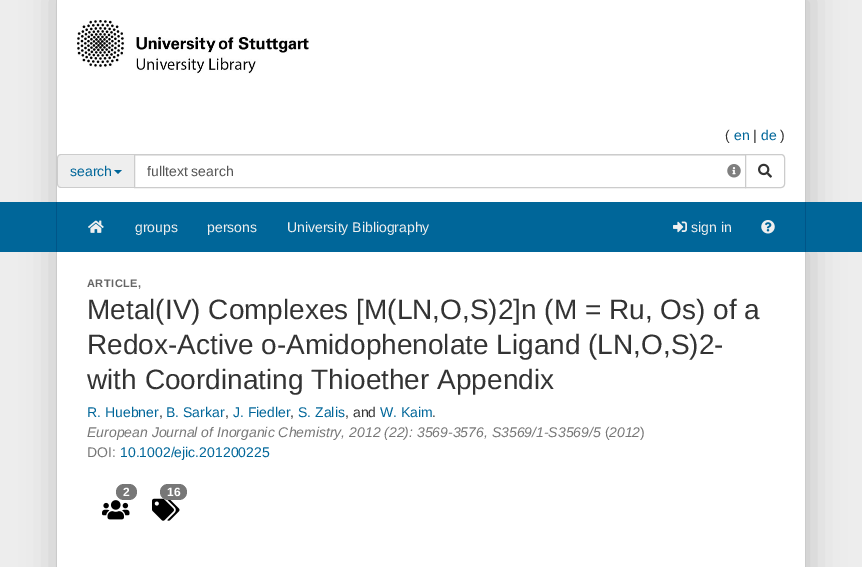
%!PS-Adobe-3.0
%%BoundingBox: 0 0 862 567
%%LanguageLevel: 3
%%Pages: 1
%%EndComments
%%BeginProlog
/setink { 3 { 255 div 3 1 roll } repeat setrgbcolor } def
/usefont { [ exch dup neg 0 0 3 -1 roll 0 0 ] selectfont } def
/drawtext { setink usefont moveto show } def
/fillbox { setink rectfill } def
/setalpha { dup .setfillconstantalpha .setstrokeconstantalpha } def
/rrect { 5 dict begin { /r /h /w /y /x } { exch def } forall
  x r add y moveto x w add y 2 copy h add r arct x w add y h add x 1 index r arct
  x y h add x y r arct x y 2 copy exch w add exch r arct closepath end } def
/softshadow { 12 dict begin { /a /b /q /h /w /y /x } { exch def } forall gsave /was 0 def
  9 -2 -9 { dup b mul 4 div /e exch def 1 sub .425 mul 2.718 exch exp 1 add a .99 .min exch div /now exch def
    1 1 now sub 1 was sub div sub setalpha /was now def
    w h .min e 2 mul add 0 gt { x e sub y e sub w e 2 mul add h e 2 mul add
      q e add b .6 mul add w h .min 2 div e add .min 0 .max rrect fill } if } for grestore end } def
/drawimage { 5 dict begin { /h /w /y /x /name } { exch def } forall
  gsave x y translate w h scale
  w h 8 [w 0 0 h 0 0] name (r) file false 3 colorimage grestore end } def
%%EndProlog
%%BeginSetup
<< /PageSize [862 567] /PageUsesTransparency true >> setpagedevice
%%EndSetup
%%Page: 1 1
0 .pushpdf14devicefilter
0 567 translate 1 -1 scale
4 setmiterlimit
0 0 862 567 237 237 237 fillbox
203 203 203 setink
52 -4 762 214 0 15 1 softshadow
57 0 748 202 255 255 255 fillbox
805 0 1 202 203 203 203 fillbox
56 0 1 202 203 203 203 fillbox
(assets/img1.rgb) 77 20 232 54 drawimage
(\() 725 140 /LiberationSans-Regular 14 51 51 51 drawtext
(en) 734 140 /LiberationSans-Regular 14 0 102 153 drawtext
(|) 753 140 /LiberationSans-Regular 14 51 51 51 drawtext
(de) 761 140 /LiberationSans-Regular 14 0 102 153 drawtext
(\)) 780 140 /LiberationSans-Regular 14 51 51 51 drawtext
238 238 238 setink
61 154 moveto 134 154 lineto 134 188 lineto 61 188 lineto 59 188 57 186 57 184 curveto 57 158 lineto 57 156 59 154 61 154 curveto closepath fill
204 204 204 setink
61 154 moveto 134 154 lineto 134 188 lineto 61 188 lineto 59 188 57 186 57 184 curveto 57 158 lineto 57 156 59 154 61 154 curveto closepath 61 155 moveto 134 155 lineto 134 187 lineto 61 187 lineto 59 187 58 186 58 184 curveto 58 158 lineto 58 156 59 155 61 155 curveto closepath eofill
(search) 70 176 /LiberationSans-Regular 14 0 102 153 drawtext
114 170 moveto 122 170 lineto 118 174 lineto closepath fill
135 155 610 1 236 236 236 fillbox
204 204 204 setink
134.5 154.5 611 33 rectstroke
(fulltext search) 147 176 /LiberationSans-Regular 14 85 85 85 drawtext
(assets/img2.rgb) 727 164 14 14 drawimage
255 255 255 setink
745.5 154.5 moveto 781 154.5 lineto 783 154.5 784.5 156 784.5 158 curveto 784.5 184 lineto 784.5 186 783 187.5 781 187.5 curveto 745.5 187.5 lineto closepath gsave fill grestore
204 204 204 setink
stroke
(assets/img3.rgb) 758 163 14 15 drawimage
203 203 203 setink
52 248 762 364 0 15 1 softshadow
0 202 862 50 0 102 153 fillbox
805 202 1 50 0 85 136 fillbox
56 202 1 50 0 85 136 fillbox
(assets/img4.rgb) 88 220 16 13 drawimage
(groups) 135 232 /LiberationSans-Regular 14 239 239 239 drawtext
(persons) 207 232 /LiberationSans-Regular 14 239 239 239 drawtext
(University Bibliography) 287 232 /LiberationSans-Regular 14 239 239 239 drawtext
(assets/img5.rgb) 673 221 14 12 drawimage
(sign in) 691 232 /LiberationSans-Regular 14 239 239 239 drawtext
(assets/img6.rgb) 761 220 14 14 drawimage
57 252 748 315 255 255 255 fillbox
805 252 1 315 203 203 203 fillbox
56 252 1 315 203 203 203 fillbox
/LiberationSans-Bold 11 usefont
101 101 101 setink
87 287 moveto 0.5 0 (ARTICLE,) ashow
(Metal\(IV\) Complexes [M\(LN,O,S\)2]n \(M = Ru, Os\) of a) 87 319 /LiberationSans-Regular 28 51 51 51 drawtext
(Redox-Active o-Amidophenolate Ligand \(LN,O,S\)2-) 87 354 /LiberationSans-Regular 28 51 51 51 drawtext
(with Coordinating Thioether Appendix) 87 389 /LiberationSans-Regular 28 51 51 51 drawtext
(R. Huebner) 87 417 /LiberationSans-Regular 14 0 102 153 drawtext
(,) 159 417 /LiberationSans-Regular 14 51 51 51 drawtext
(B. Sarkar) 166 417 /LiberationSans-Regular 14 0 102 153 drawtext
(,) 225 417 /LiberationSans-Regular 14 51 51 51 drawtext
(J. Fiedler) 233 417 /LiberationSans-Regular 14 0 102 153 drawtext
(,) 290 417 /LiberationSans-Regular 14 51 51 51 drawtext
(S. Zalis) 298 417 /LiberationSans-Regular 14 0 102 153 drawtext
(, and) 345 417 /LiberationSans-Regular 14 51 51 51 drawtext
(W. Kaim) 380 417 /LiberationSans-Regular 14 0 102 153 drawtext
(.) 432 417 /LiberationSans-Regular 14 51 51 51 drawtext
(European Journal of Inorganic Chemistry, 2012 \(22\): 3569-3576, S3569/1-S3569/5) 87 437 /LiberationSans-Italic 14 119 119 119 drawtext
(\() 605 437 /LiberationSans-Regular 14 119 119 119 drawtext
(2012) 609 437 /LiberationSans-Italic 14 119 119 119 drawtext
(\)) 640 437 /LiberationSans-Regular 14 119 119 119 drawtext
(DOI:) 87 457 /LiberationSans-Regular 14 119 119 119 drawtext
(10.1002/ejic.201200225) 120 457 /LiberationSans-Regular 14 0 102 153 drawtext
119 119 119 setink
116 484 21 16 8 rrect fill
(2) 123 496 /LiberationSans-Bold 12 255 255 255 drawtext
(assets/img7.rgb) 102 500 28 20 drawimage
(assets/img8.rgb) 152 498 28 23 drawimage
119 119 119 setink
160 484 27 16 8 rrect fill
(16) 167 496 /LiberationSans-Bold 12 255 255 255 drawtext
.poppdf14devicefilter showpage
%%EOF
